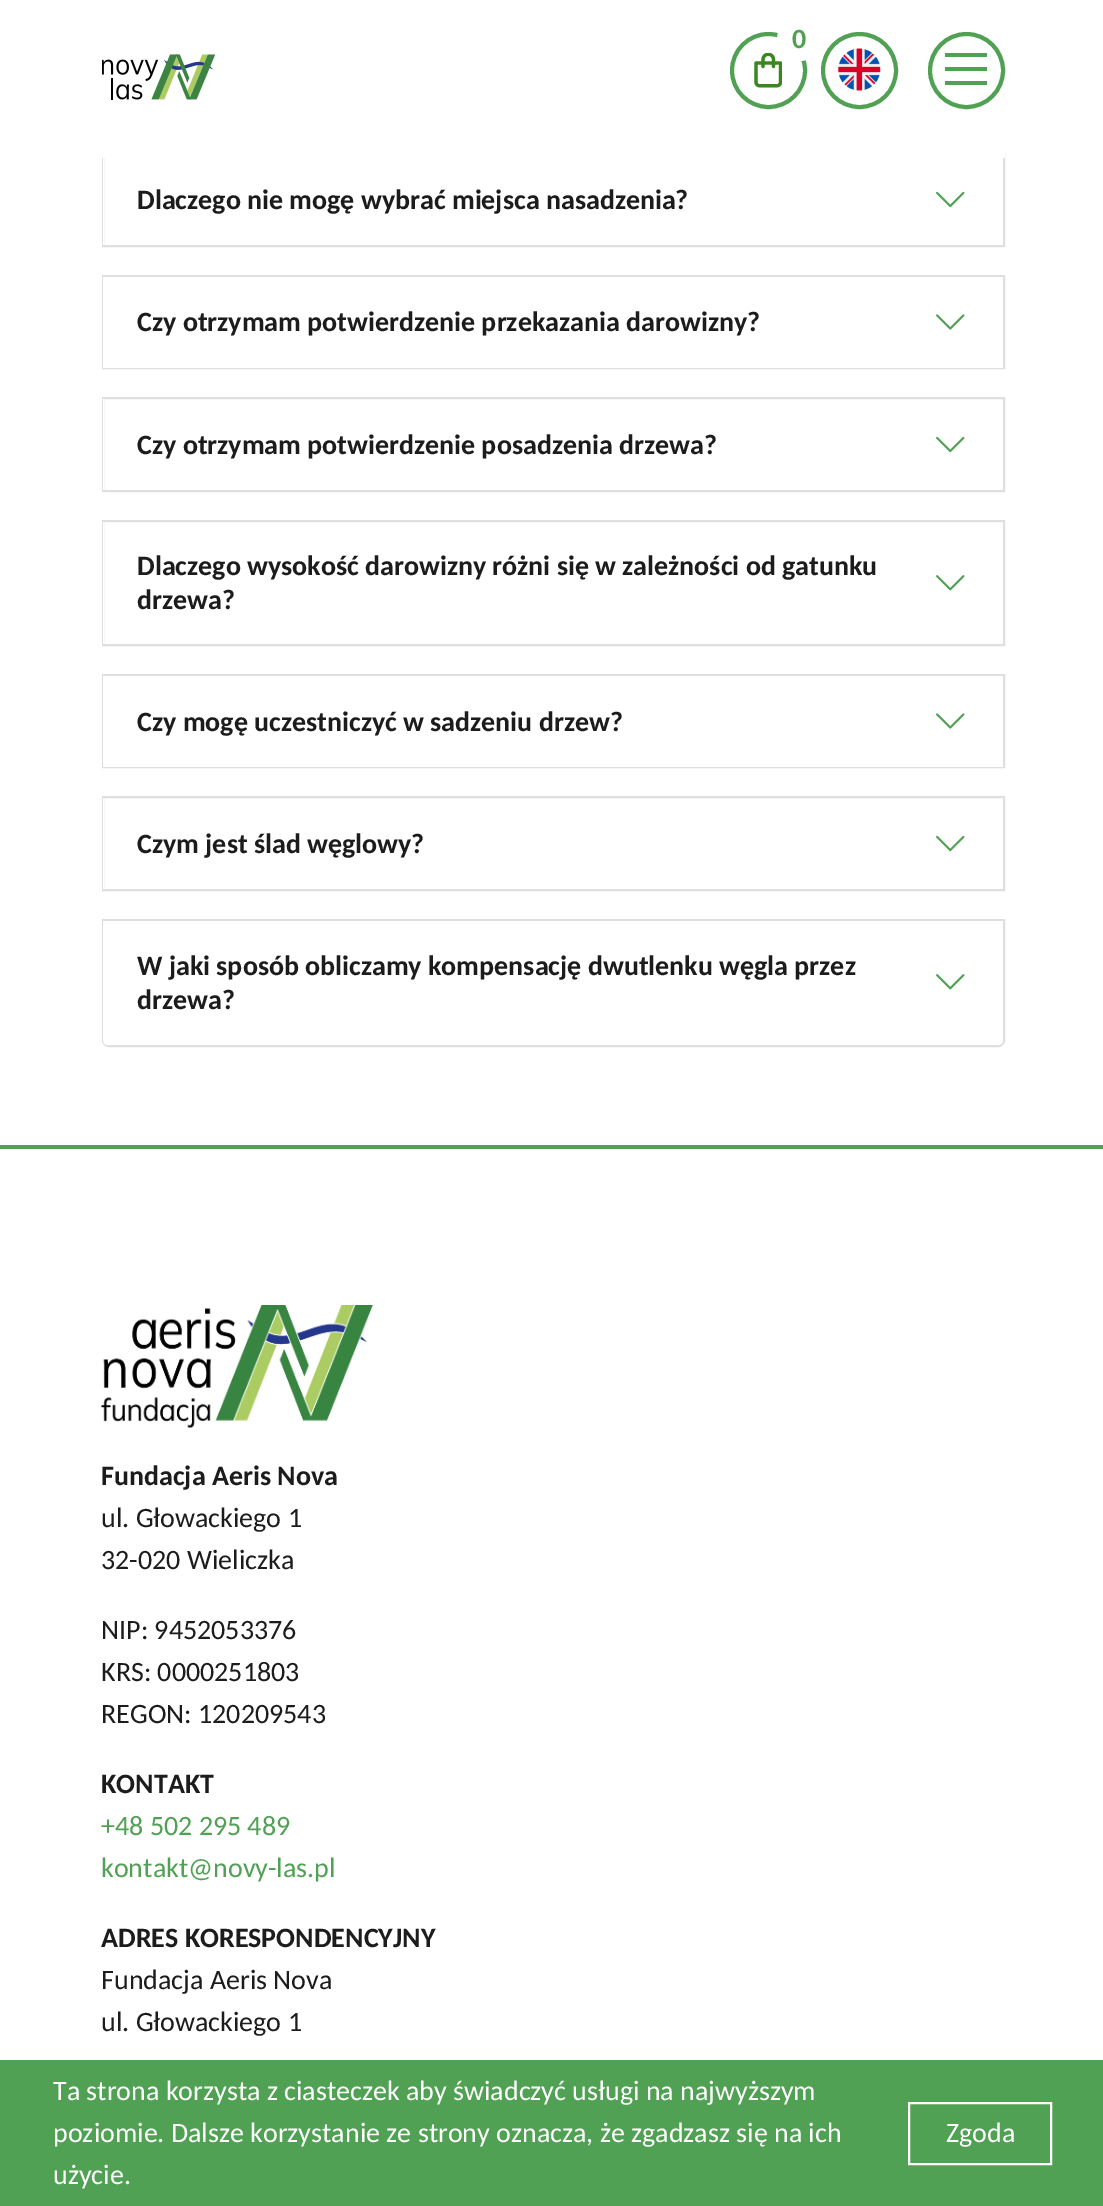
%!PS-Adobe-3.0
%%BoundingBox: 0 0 1103 2206
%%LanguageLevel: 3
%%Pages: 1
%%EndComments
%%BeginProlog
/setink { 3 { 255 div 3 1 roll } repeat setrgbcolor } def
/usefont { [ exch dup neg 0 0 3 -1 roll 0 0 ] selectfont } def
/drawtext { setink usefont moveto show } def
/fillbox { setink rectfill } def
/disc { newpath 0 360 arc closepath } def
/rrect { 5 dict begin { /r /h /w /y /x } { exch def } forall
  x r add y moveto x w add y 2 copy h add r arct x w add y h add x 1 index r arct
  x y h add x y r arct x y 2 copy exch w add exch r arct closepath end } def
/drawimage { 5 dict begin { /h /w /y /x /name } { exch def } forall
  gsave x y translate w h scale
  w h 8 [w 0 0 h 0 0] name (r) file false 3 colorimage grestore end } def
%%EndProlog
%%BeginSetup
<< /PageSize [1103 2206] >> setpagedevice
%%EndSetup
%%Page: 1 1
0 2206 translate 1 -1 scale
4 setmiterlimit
0 0 1103 2206 255 255 255 fillbox
223 223 223 setink
2 setlinewidth
103 153 901 93 rectstroke
102 152 903 6 255 255 255 fillbox
(assets/img1.rgb) 754 53 28 35 drawimage
80 161 83 setink
4 setlinewidth
768.5 70.5 36.5 disc stroke
255 255 255 setink
777 18 44 43 21.5 rrect fill
(0) 792 48 /Carlito-Bold 28 80 161 83 drawtext
(assets/img2.rgb) 838 48 43 43 drawimage
859.5 70.5 36.5 disc stroke
966.5 70.5 36.5 disc stroke
945 53 42 4 80 161 83 fillbox
945 67 42 4 80 161 83 fillbox
945 81 42 4 80 161 83 fillbox
(assets/img3.rgb) 102 54 113 46 drawimage
103 158 1 87 255 255 255 fillbox
(Dlaczego nie mogę wybrać miejsca nasadzenia?) 137 209 /Carlito-Bold 28 28 28 28 drawtext
(assets/img4.rgb) 936 191 29 17 drawimage
223 223 223 setink
2 setlinewidth
103 276 901 92 rectstroke
103 277 900 91 255 255 255 fillbox
(Czy otrzymam potwierdzenie przekazania darowizny?) 137 331 /Carlito-Bold 28 28 28 28 drawtext
(assets/img5.rgb) 936 314 29 16 drawimage
223 223 223 setink
103 398 901 93 rectstroke
103 399 1 91 255 255 255 fillbox
(Czy otrzymam potwierdzenie posadzenia drzewa?) 137 454 /Carlito-Bold 28 28 28 28 drawtext
(assets/img4.rgb) 936 436 29 17 drawimage
223 223 223 setink
103 521 901 124 rectstroke
103 522 1 122 255 255 255 fillbox
(Dlaczego wysokość darowizny różni się w zależności od gatunku) 137 575 /Carlito-Bold 28 28 28 28 drawtext
(assets/img6.rgb) 936 575 29 16 drawimage
(drzewa?) 137 609 /Carlito-Bold 28 28 28 28 drawtext
223 223 223 setink
103 675 901 92 rectstroke
103 676 900 91 255 255 255 fillbox
(Czy mogę uczestniczyć w sadzeniu drzew?) 137 731 /Carlito-Bold 28 28 28 28 drawtext
(assets/img5.rgb) 936 713 29 16 drawimage
223 223 223 setink
103 797 901 93 rectstroke
103 798 1 91 255 255 255 fillbox
(Czym jest ślad węglowy?) 137 853 /Carlito-Bold 28 28 28 28 drawtext
(assets/img4.rgb) 936 835 29 17 drawimage
223 223 223 setink
103 920 moveto 1004 920 lineto 1004 1040 lineto 1004 1043.5 1001.5 1046 998 1046 curveto 109 1046 lineto 105.5 1046 103 1043.5 103 1040 curveto closepath stroke
255 255 255 setink
103 921 moveto 1003 921 lineto 1003 1040 lineto 1003 1043 1001 1045 998 1045 curveto 108 1045 lineto 105 1045 103 1043 103 1040 curveto closepath fill
(W jaki sposób obliczamy kompensację dwutlenku węgla przez) 137 975 /Carlito-Bold 28 28 28 28 drawtext
(assets/img6.rgb) 936 974 29 16 drawimage
(drzewa?) 137 1009 /Carlito-Bold 28 28 28 28 drawtext
0 1145 1103 4 80 161 83 fillbox
(assets/img7.rgb) 101 1305 272 123 drawimage
(Fundacja Aeris Nova) 101 1485 /Carlito-Bold 28 28 28 28 drawtext
(ul. Głowackiego 1) 101 1527 /Carlito-Regular 28 28 28 28 drawtext
(32-020 Wieliczka) 101 1569 /Carlito-Regular 28 28 28 28 drawtext
(NIP: 9452053376) 101 1639 /Carlito-Regular 28 28 28 28 drawtext
(KRS: 0000251803) 101 1681 /Carlito-Regular 28 28 28 28 drawtext
(REGON: 120209543) 101 1723 /Carlito-Regular 28 28 28 28 drawtext
(KONTAKT) 101 1793 /Carlito-Bold 28 28 28 28 drawtext
(+48 502 295 489) 101 1835 /Carlito-Regular 28 80 161 83 drawtext
(kontakt@novy-las.pl) 101 1877 /Carlito-Regular 28 80 161 83 drawtext
(ADRES KORESPONDENCYJNY) 101 1947 /Carlito-Bold 28 28 28 28 drawtext
(Fundacja Aeris Nova) 101 1989 /Carlito-Regular 28 28 28 28 drawtext
(ul. Głowackiego 1) 101 2031 /Carlito-Regular 28 28 28 28 drawtext
0 2060 1103 146 80 161 83 fillbox
(Ta strona korzysta z ciasteczek aby świadczyć usługi na najwyższym) 53 2100 /Carlito-Regular 28 255 255 255 drawtext
(poziomie. Dalsze korzystanie ze strony oznacza, że zgadzasz się na ich) 53 2142 /Carlito-Regular 28 255 255 255 drawtext
(użycie.) 53 2184 /Carlito-Regular 28 255 255 255 drawtext
909 2103 142 61 rectstroke
(Zgoda) 946 2142 /Carlito-Regular 28 255 255 255 drawtext
showpage
%%EOF
